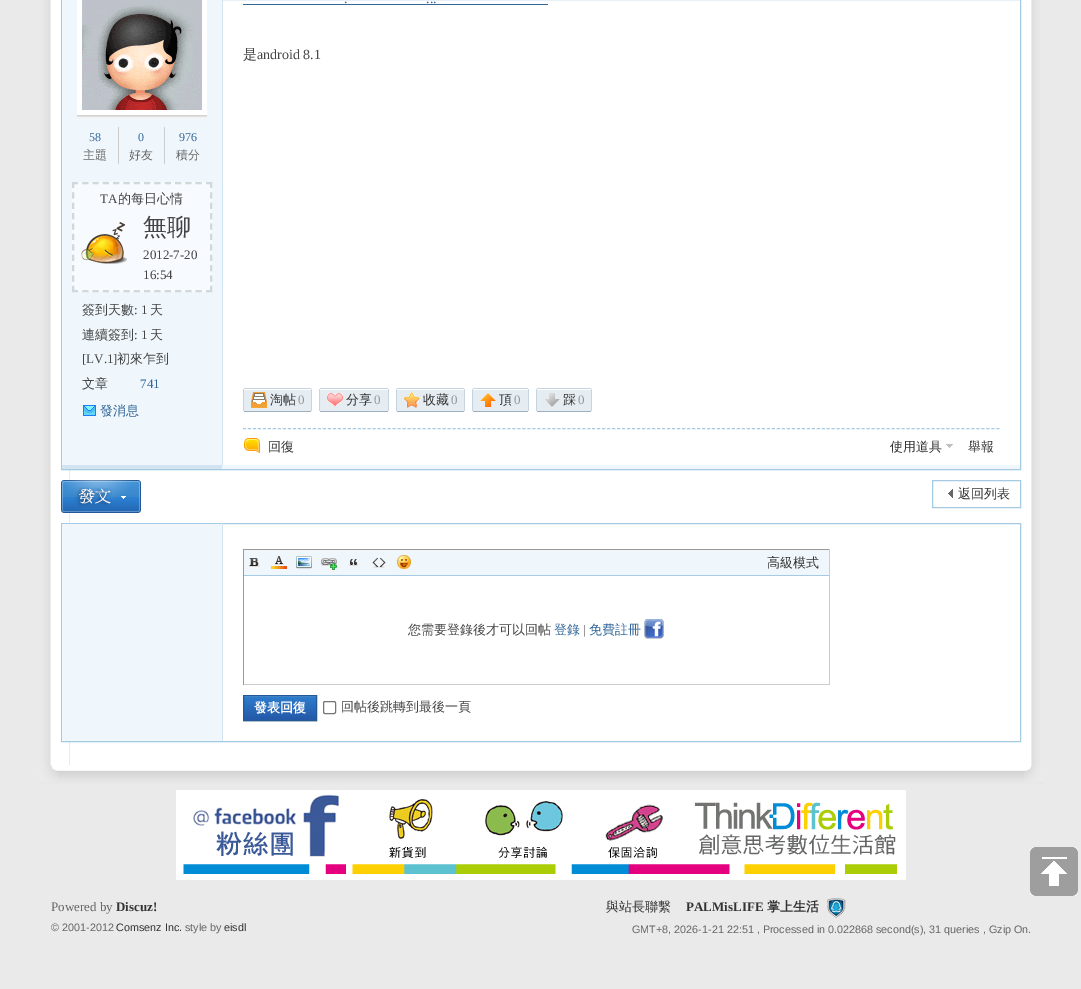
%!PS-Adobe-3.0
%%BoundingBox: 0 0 1081 989
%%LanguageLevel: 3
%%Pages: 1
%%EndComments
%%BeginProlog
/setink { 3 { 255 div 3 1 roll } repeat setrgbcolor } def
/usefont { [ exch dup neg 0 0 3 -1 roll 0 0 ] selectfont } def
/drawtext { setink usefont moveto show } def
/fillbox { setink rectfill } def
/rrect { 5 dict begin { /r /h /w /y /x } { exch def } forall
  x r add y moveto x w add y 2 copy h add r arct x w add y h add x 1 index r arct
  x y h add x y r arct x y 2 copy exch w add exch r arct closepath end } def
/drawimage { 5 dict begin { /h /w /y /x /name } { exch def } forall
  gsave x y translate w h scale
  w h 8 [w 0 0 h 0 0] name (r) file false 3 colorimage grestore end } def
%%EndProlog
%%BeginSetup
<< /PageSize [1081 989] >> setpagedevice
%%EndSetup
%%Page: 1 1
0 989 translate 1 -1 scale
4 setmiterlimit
0 0 1081 989 234 234 234 fillbox
70 0 961 765 255 255 255 fillbox
(assets/img1.rgb) 39 0 31 765 drawimage
(assets/img2.rgb) 1031 0 12 765 drawimage
(assets/img3.rgb) 39 765 1004 20 drawimage
(assets/img4.rgb) 39 765 19 17 drawimage
(assets/img5.rgb) 1024 765 19 17 drawimage
165 202 228 setink
61.5 -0.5 959 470 rectstroke
(.) 344 3 /LiberationSerif-Regular 14 51 102 153 drawtext
243 4 305 1 51 102 153 fillbox
(...) 426 3 /LiberationSerif-Regular 14 51 102 153 drawtext
(是) 243 59 /WenQuanYiZenHei-Medium 14 68 68 68 drawtext
(android 8.1) 257 59 /LiberationSerif-Regular 14 68 68 68 drawtext
62 0 160 465 240 247 252 fillbox
77 0 130 115 255 255 255 fillbox
(assets/img6.rgb) 77 0 130 118 drawimage
118 127 1 37 204 204 204 fillbox
(58) 89 141 /LiberationSerif-Regular 12 51 102 153 drawtext
(主題) 83 159 /WenQuanYiZenHei-Medium 12 102 102 102 drawtext
164 127 1 37 204 204 204 fillbox
(0) 138 141 /LiberationSerif-Regular 12 51 102 153 drawtext
(好友) 129 159 /WenQuanYiZenHei-Medium 12 102 102 102 drawtext
(976) 179 141 /LiberationSerif-Regular 12 51 102 153 drawtext
(積分) 176 159 /WenQuanYiZenHei-Medium 12 102 102 102 drawtext
72 182 140 110 247 250 255 fillbox
209 216 216 setink
2 setlinewidth
[6 4.31] 0 setdash
72 183 moveto 212 183 lineto stroke
[6 4.4] 0 setdash
211 182 moveto 211 292 lineto stroke
[6 4.31] 0 setdash
72 291 moveto 212 291 lineto stroke
[6 4.4] 0 setdash
73 182 moveto 73 292 lineto stroke
(TA) 100 203 /LiberationSerif-Regular 13 68 68 68 drawtext
(的每日心情) 118 203 /WenQuanYiZenHei-Medium 13 68 68 68 drawtext
(assets/img7.rgb) 81 222 46 42 drawimage
(無聊) 143 235 /WenQuanYiZenHei-Medium 24 68 68 68 drawtext
(2012-7-20) 143 259 /LiberationSerif-Regular 13 68 68 68 drawtext
(16:54) 143 279 /LiberationSerif-Regular 13 68 68 68 drawtext
(簽到天數) 82 314 /WenQuanYiZenHei-Medium 13 68 68 68 drawtext
(: 1) 134 314 /LiberationSerif-Regular 13 68 68 68 drawtext
(天) 150 314 /WenQuanYiZenHei-Medium 13 68 68 68 drawtext
(連續簽到) 82 339 /WenQuanYiZenHei-Medium 13 68 68 68 drawtext
(: 1) 134 339 /LiberationSerif-Regular 13 68 68 68 drawtext
(天) 150 339 /WenQuanYiZenHei-Medium 13 68 68 68 drawtext
([LV.1]) 82 363 /LiberationSerif-Regular 13 68 68 68 drawtext
(初來乍到) 117 363 /WenQuanYiZenHei-Medium 13 68 68 68 drawtext
(文章) 82 388 /WenQuanYiZenHei-Medium 13 68 68 68 drawtext
(741) 140 388 /LiberationSerif-Regular 13 51 102 153 drawtext
(assets/img8.rgb) 83 405 13 11 drawimage
(發消息) 100 415 /WenQuanYiZenHei-Medium 13 51 102 153 drawtext
(assets/img9.rgb) 243 388 25 24 drawimage
(assets/img10.rgb) 268 388 44 24 drawimage
(assets/img11.rgb) 251 392 16 16 drawimage
(淘帖) 270 404 /WenQuanYiZenHei-Medium 13 51 51 51 drawtext
(0) 298 404 /LiberationSerif-Regular 13 153 153 153 drawtext
(assets/img12.rgb) 319 388 26 24 drawimage
(assets/img13.rgb) 345 388 44 24 drawimage
(assets/img14.rgb) 327 393 16 14 drawimage
(分享) 346 404 /WenQuanYiZenHei-Medium 13 51 51 51 drawtext
(0) 374 404 /LiberationSerif-Regular 13 153 153 153 drawtext
(assets/img9.rgb) 396 388 25 24 drawimage
(assets/img10.rgb) 421 388 44 24 drawimage
(assets/img15.rgb) 404 392 16 16 drawimage
(收藏) 423 404 /WenQuanYiZenHei-Medium 13 51 51 51 drawtext
(0) 451 404 /LiberationSerif-Regular 13 153 153 153 drawtext
(assets/img12.rgb) 472 388 26 24 drawimage
(assets/img16.rgb) 498 388 31 24 drawimage
(assets/img17.rgb) 480 393 16 14 drawimage
(頂) 499 404 /WenQuanYiZenHei-Medium 13 51 51 51 drawtext
(0) 514 404 /LiberationSerif-Regular 13 153 153 153 drawtext
(assets/img9.rgb) 536 388 25 24 drawimage
(assets/img18.rgb) 561 388 31 24 drawimage
(assets/img19.rgb) 544 393 16 14 drawimage
(踩) 563 404 /WenQuanYiZenHei-Medium 13 51 51 51 drawtext
(0) 578 404 /LiberationSerif-Regular 13 153 153 153 drawtext
222 0 1 465 210 228 242 fillbox
165 202 228 setink
1 setlinewidth
[3 1.99] 0 setdash
243 428.5 moveto 1000 428.5 lineto stroke
(assets/img20.rgb) 244 438 16 15 drawimage
(回復) 268 451 /WenQuanYiZenHei-Medium 13 51 51 51 drawtext
(使用道具) 890 451 /WenQuanYiZenHei-Medium 13 51 51 51 drawtext
(assets/img21.rgb) 946 444 7 4 drawimage
(舉報) 968 451 /WenQuanYiZenHei-Medium 13 51 51 51 drawtext
62 465 160 4 210 228 242 fillbox
222 465 798 4 240 247 252 fillbox
(assets/img22.rgb) 61 480 80 33 drawimage
(assets/img23.rgb) 948 489 5 9 drawimage
165 202 228 setink
[] 0 setdash
932.5 480.5 88 27 rectstroke
(返回列表) 958 498 /WenQuanYiZenHei-Medium 13 51 51 51 drawtext
165 202 228 setink
61.5 523.5 959 218 rectstroke
222 523 1 218 210 228 242 fillbox
62 524 160 217 240 247 252 fillbox
243 549 587 1 153 153 153 fillbox
829 549 1 136 204 204 204 fillbox
243 684 587 1 204 204 204 fillbox
243 549 1 136 153 153 153 fillbox
244 550 585 25 240 247 252 fillbox
244 575 585 1 165 202 228 fillbox
(assets/img24.rgb) 248 558 12 9 drawimage
(assets/img25.rgb) 271 556 16 14 drawimage
(assets/img26.rgb) 296 556 17 13 drawimage
(assets/img27.rgb) 321 558 18 14 drawimage
(assets/img28.rgb) 348 559 11 7 drawimage
(assets/img29.rgb) 372 558 14 10 drawimage
(assets/img30.rgb) 395 555 17 15 drawimage
(高級模式) 767 567 /WenQuanYiZenHei-Medium 13 51 51 51 drawtext
(您需要登錄後才可以回帖) 408 634 /WenQuanYiZenHei-Medium 13 68 68 68 drawtext
(登錄) 554 634 /WenQuanYiZenHei-Medium 13 51 102 153 drawtext
(|) 583 634 /LiberationSerif-Regular 13 68 68 68 drawtext
(免費註冊) 589 634 /WenQuanYiZenHei-Medium 13 51 102 153 drawtext
(assets/img31.rgb) 644 619 20 20 drawimage
243 721 74 1 229 229 229 fillbox
(assets/img32.rgb) 244 696 72 24 drawimage
35 89 148 setink
243.5 695.5 73 25 rectstroke
(發表回復) 254 712 /WenQuanYiZenHei-Bold 13 255 255 255 drawtext
118 118 118 setink
323.5 701.5 12 12 1.5 rrect stroke
(回帖後跳轉到最後一頁) 341 711 /WenQuanYiZenHei-Medium 13 68 68 68 drawtext
(assets/img33.rgb) 176 790 730 90 drawimage
(assets/img34.rgb) 1030 847 48 49 drawimage
(Powered by) 51 911 /LiberationSerif-Regular 13 102 102 102 drawtext
(Discuz!) 116 911 /LiberationSerif-Bold 13 51 51 51 drawtext
(© 2001-2012) 51 931 /LiberationSans-Regular 10.8 102 102 102 drawtext
(Comsenz Inc.) 116 931 /LiberationSans-Regular 10.8 51 51 51 drawtext
(style by) 185 931 /LiberationSans-Regular 10.8 102 102 102 drawtext
(eisdl) 224 931 /LiberationSans-Regular 10.8 51 51 51 drawtext
(與站長聯繫) 606 911 /WenQuanYiZenHei-Medium 13 51 51 51 drawtext
(PALMisLIFE) 686 911 /LiberationSerif-Bold 13 51 51 51 drawtext
(掌上生活) 767 911 /WenQuanYiZenHei-Bold 13 51 51 51 drawtext
(assets/img35.rgb) 827 898 19 20 drawimage
(GMT+8, 2026-1-21 22:51 , Processed in 0.022868 second\(s\), 31 queries , Gzip On.) 632 933 /LiberationSans-Regular 10.8 102 102 102 drawtext
showpage
%%EOF
